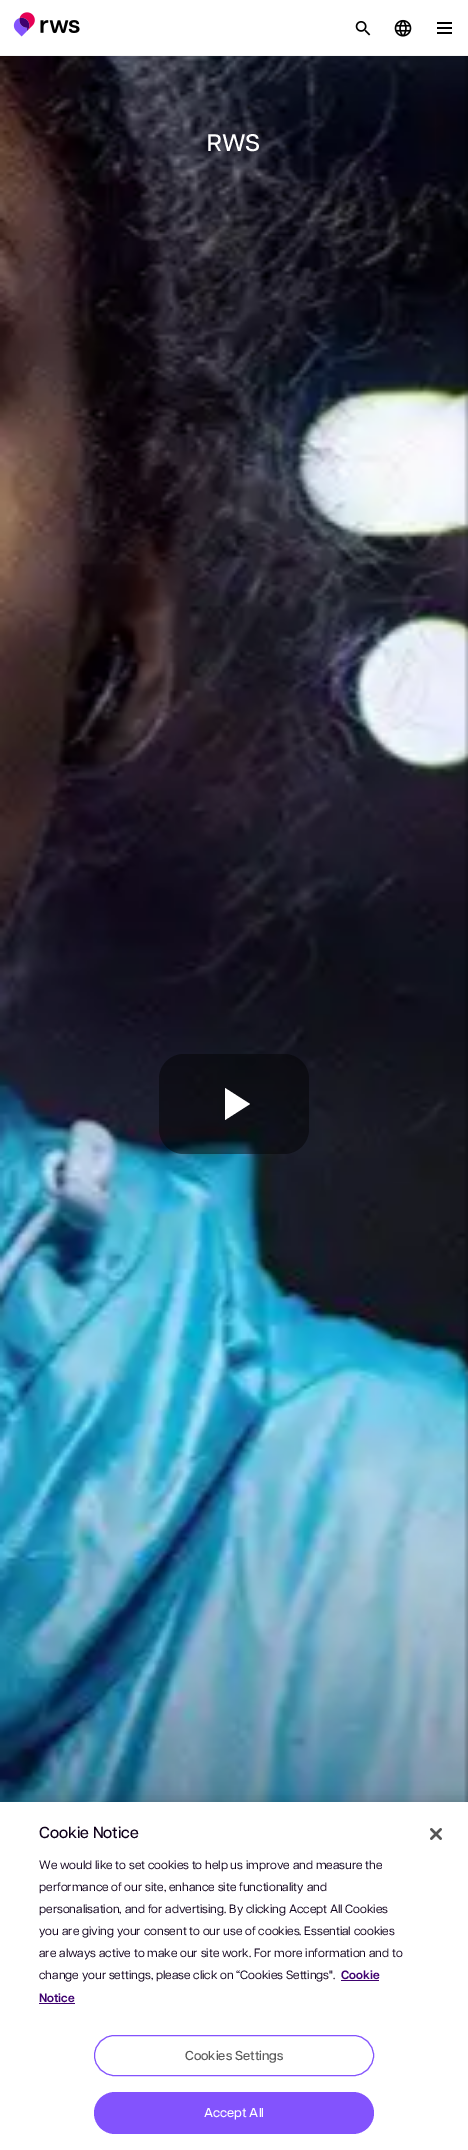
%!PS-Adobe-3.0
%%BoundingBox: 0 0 468 2150
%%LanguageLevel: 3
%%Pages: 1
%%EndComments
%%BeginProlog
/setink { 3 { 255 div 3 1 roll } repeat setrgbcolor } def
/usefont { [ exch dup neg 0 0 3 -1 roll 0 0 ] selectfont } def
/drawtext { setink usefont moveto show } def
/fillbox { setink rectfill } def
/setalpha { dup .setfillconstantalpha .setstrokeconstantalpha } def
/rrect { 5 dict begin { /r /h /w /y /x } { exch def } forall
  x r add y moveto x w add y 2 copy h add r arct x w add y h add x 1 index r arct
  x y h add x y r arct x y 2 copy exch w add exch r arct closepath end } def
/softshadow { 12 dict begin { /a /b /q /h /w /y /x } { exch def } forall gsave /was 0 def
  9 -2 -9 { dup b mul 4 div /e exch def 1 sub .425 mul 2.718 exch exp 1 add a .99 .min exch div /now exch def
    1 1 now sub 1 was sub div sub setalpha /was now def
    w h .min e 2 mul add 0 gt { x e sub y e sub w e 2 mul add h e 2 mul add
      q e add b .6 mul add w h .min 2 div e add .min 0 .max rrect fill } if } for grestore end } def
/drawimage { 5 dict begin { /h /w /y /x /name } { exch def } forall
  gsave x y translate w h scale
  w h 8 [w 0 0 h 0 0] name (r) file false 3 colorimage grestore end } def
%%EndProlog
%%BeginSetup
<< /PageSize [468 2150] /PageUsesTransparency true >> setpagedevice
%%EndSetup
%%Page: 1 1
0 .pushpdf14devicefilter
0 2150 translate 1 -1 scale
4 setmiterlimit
0 0 468 2150 255 255 255 fillbox
0 55 468 1 245 245 245 fillbox
(assets/img1.rgb) 13 12 67 25 drawimage
(assets/img2.rgb) 355 21 16 15 drawimage
(assets/img3.rgb) 394 19 18 18 drawimage
437 27 15 2 0 0 0 fillbox
437 22 15 2 0 0 0 fillbox
437 32 15 2 0 0 0 fillbox
(assets/img4.rgb) 0 56 468 1746 drawimage
(RWS) 207 151 /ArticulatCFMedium-Medium 24 255 255 255 drawtext
0.45 setalpha
0 0 0 setink
159 1054 150 100 25 rrect fill
1 setalpha
255 255 255 setink
225 1120 moveto 225 1088 lineto 250 1104 lineto closepath fill
0 0 0 setink
0 1802 468 348 0 9 0.2 softshadow
0 1802 468 348 255 255 255 fillbox
(Cookie Notice) 39 1838 /ArticulatCFMedium-Medium 16 15 0 27 drawtext
(We would like to set cookies to help us improve and measure the) 39 1869 /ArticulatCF-Regular 12 15 0 27 drawtext
(performance of our site, enhance site functionality and) 39 1891 /ArticulatCF-Regular 12 15 0 27 drawtext
(personalisation, and for advertising. By clicking Accept All Cookies) 39 1913 /ArticulatCF-Regular 12 15 0 27 drawtext
(you are giving your consent to our use of cookies. Essential cookies) 39 1935 /ArticulatCF-Regular 12 15 0 27 drawtext
(are always active to make our site work. For more information and to) 39 1957 /ArticulatCF-Regular 12 15 0 27 drawtext
(change your settings, please click on “Cookies Settings".) 39 1979 /ArticulatCF-Regular 12 15 0 27 drawtext
(Cookie) 341 1979 /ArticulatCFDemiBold-SemiBold 12 62 1 111 drawtext
341 1980 38 1 62 1 111 fillbox
(Notice) 39 2002 /ArticulatCFDemiBold-SemiBold 12 62 1 111 drawtext
39 2003 36 1 62 1 111 fillbox
131 83 253 setink
94.5 2035.5 279 40 20 rrect stroke
(Cookies Settings) 185 2060 /ArticulatCFMedium-Medium 13 88 88 88 drawtext
131 83 253 setink
94 2092 280 42 21 rrect fill
(Accept All) 204 2117 /ArticulatCFMedium-Medium 13 255 255 255 drawtext
(assets/img5.rgb) 430 1828 12 12 drawimage
.poppdf14devicefilter showpage
%%EOF
